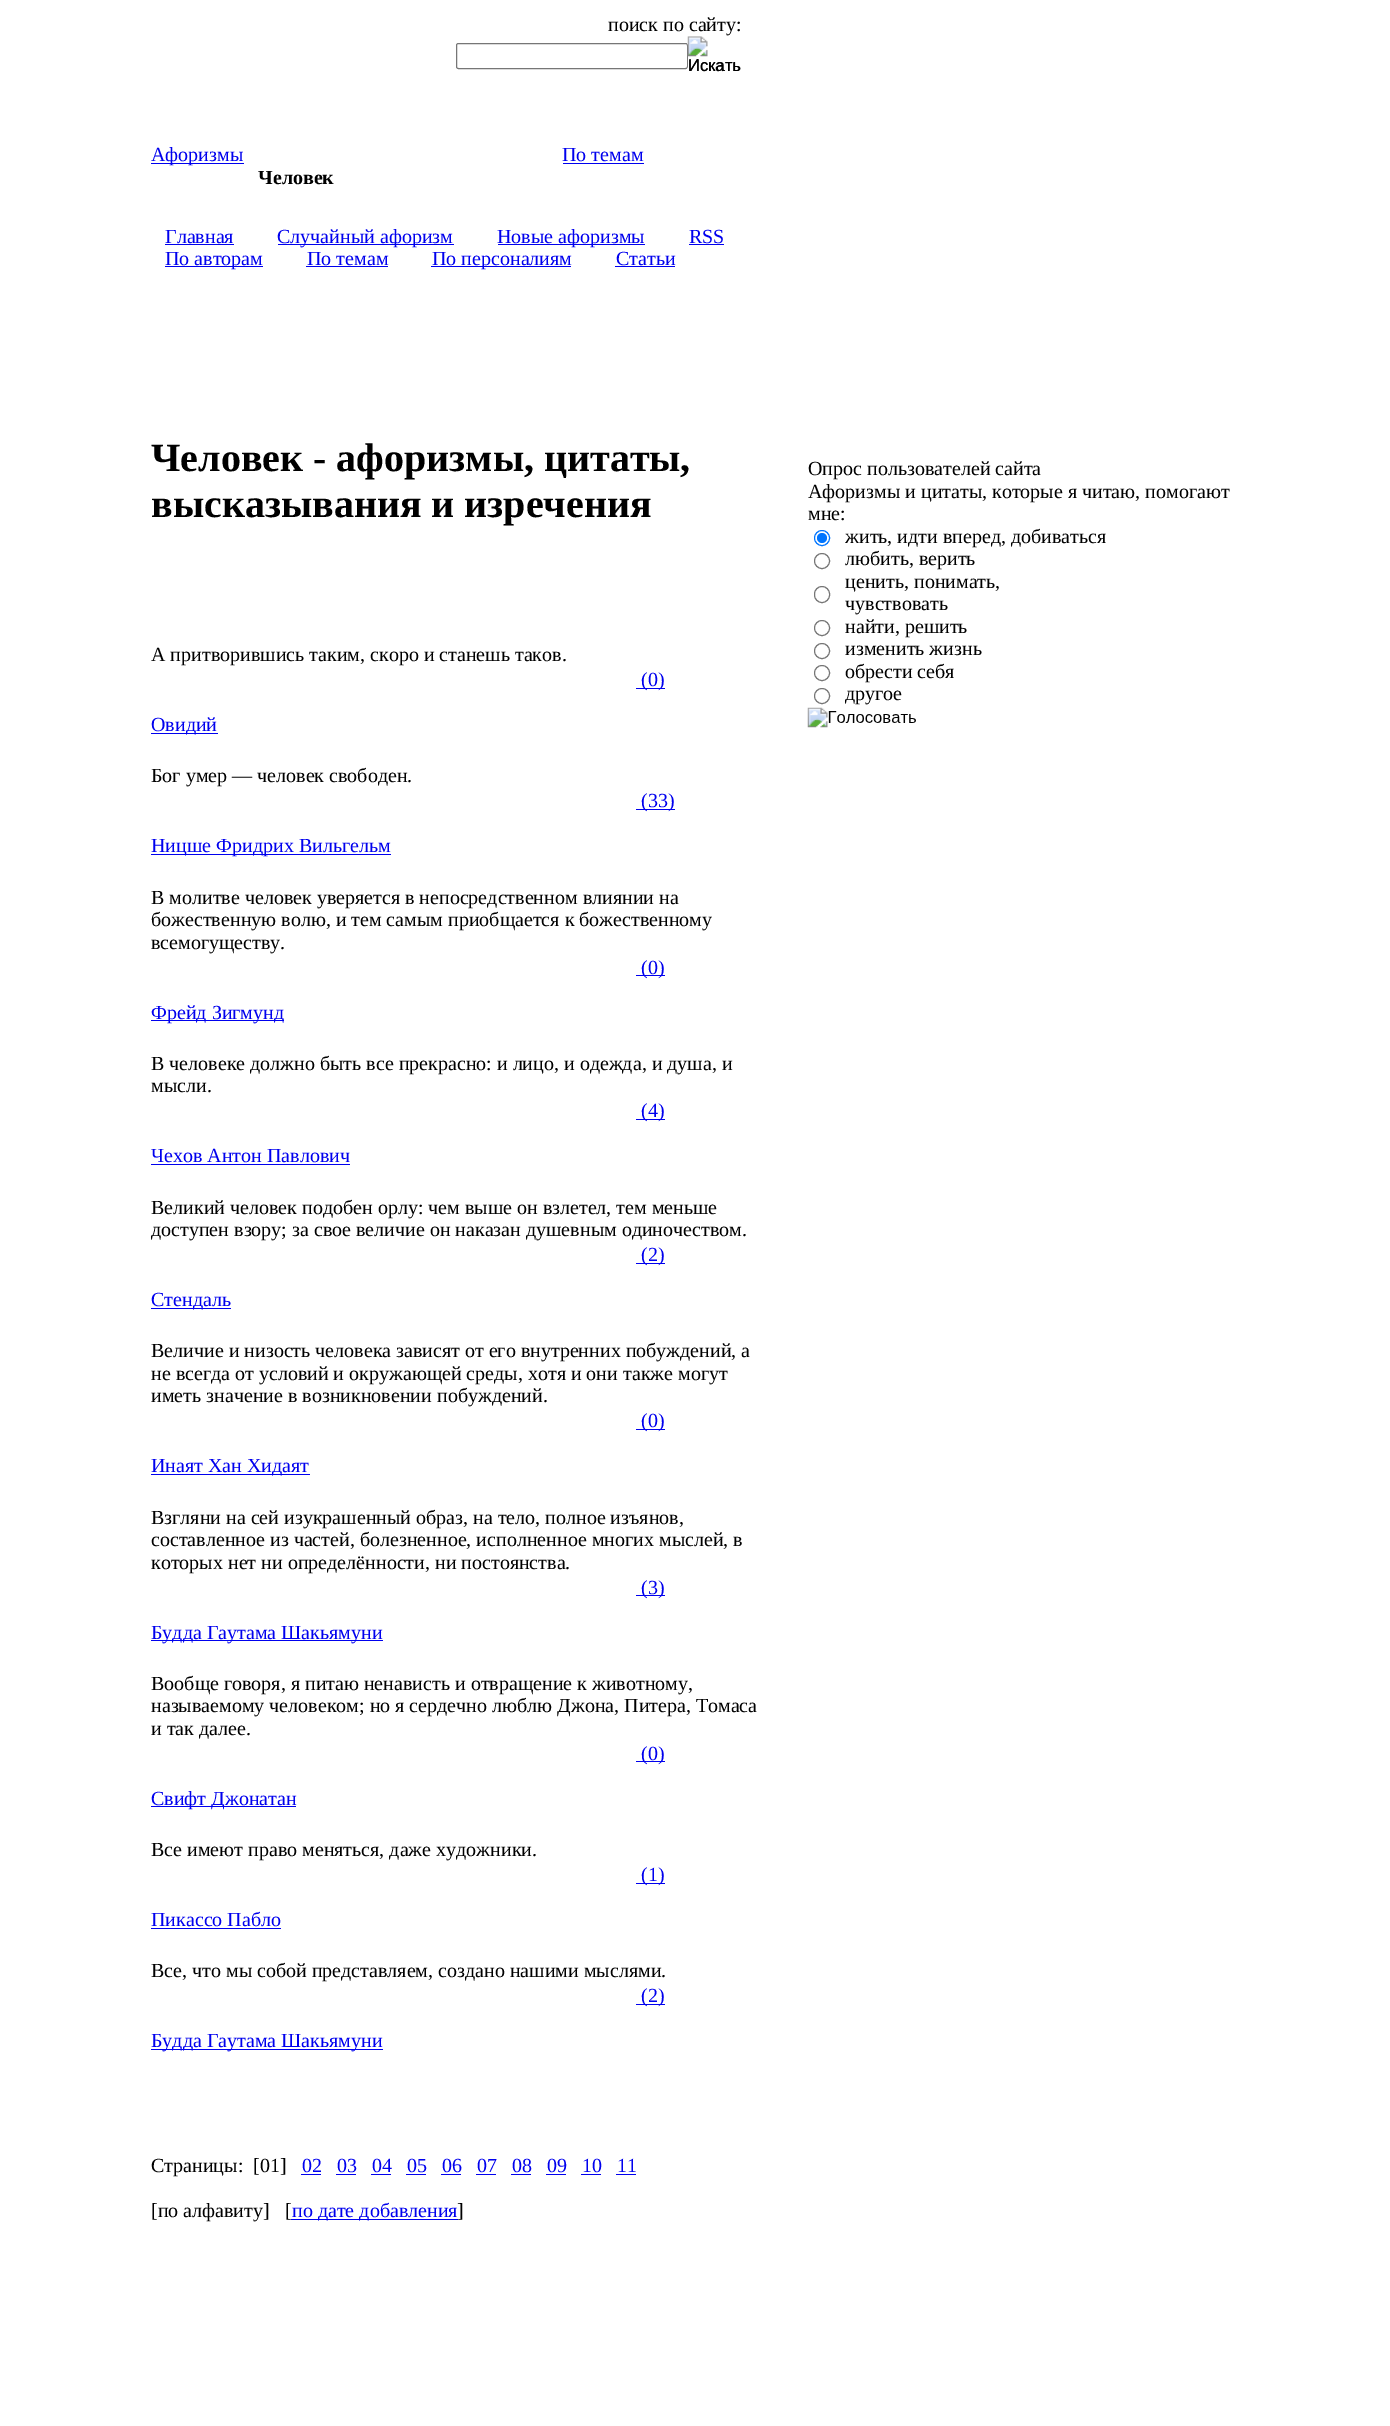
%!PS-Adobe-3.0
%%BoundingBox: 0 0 1390 2426
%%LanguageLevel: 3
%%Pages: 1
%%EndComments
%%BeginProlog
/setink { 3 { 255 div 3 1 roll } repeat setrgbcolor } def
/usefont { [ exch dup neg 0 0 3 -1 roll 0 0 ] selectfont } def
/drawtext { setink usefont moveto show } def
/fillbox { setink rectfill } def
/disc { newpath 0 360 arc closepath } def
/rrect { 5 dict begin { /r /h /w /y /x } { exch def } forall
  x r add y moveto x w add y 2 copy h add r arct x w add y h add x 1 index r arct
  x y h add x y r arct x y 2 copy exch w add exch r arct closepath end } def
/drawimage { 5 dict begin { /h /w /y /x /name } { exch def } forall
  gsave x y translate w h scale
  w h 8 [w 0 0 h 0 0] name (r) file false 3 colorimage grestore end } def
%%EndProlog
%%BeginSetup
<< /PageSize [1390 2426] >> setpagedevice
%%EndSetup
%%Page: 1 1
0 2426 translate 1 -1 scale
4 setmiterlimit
0 0 1390 2426 255 255 255 fillbox
(поиск по сайту:) 608 31 /LiberationSerif-Regular 20 0 0 0 drawtext
118 118 118 setink
456.5 43.5 231 25 2 rrect stroke
(assets/img1.rgb) 687 36 54 35 drawimage
(Искать) 688 71 /LiberationSans-Regular 16.5 0 0 0 drawtext
151 163 93 1 0 0 238 fillbox
(Афоризмы) 151 161 /LiberationSerif-Regular 20 0 0 238 drawtext
(По темам) 562 161 /LiberationSerif-Regular 20 0 0 238 drawtext
563 163 81 1 0 0 238 fillbox
(Человек) 258 184 /LiberationSerif-Bold 20 0 0 0 drawtext
(Главная) 165 243 /LiberationSerif-Regular 20 0 0 238 drawtext
165 244 69 1 0 0 238 fillbox
278 244 176 1 0 0 238 fillbox
(Случайный афоризм) 277 243 /LiberationSerif-Regular 20 0 0 238 drawtext
498 244 147 1 0 0 238 fillbox
(Новые афоризмы) 497 243 /LiberationSerif-Regular 20 0 0 238 drawtext
(RSS) 689 243 /LiberationSerif-Regular 20 0 0 238 drawtext
689 244 35 1 0 0 238 fillbox
165 266 98 1 0 0 238 fillbox
(По авторам) 165 265 /LiberationSerif-Regular 20 0 0 238 drawtext
(По темам) 307 265 /LiberationSerif-Regular 20 0 0 238 drawtext
306 266 82 1 0 0 238 fillbox
431 266 140 1 0 0 238 fillbox
(По персоналиям) 432 265 /LiberationSerif-Regular 20 0 0 238 drawtext
(Статьи) 616 265 /LiberationSerif-Regular 20 0 0 238 drawtext
615 266 60 1 0 0 238 fillbox
(Человек - афоризмы, цитаты,) 151 471 /LiberationSerif-Bold 40 0 0 0 drawtext
(высказывания и изречения) 151 517 /LiberationSerif-Bold 40 0 0 0 drawtext
(А притворившись таким, скоро и станешь таков.) 151 661 /LiberationSerif-Regular 20 0 0 0 drawtext
636 688 29 1 0 0 238 fillbox
(\(0\)) 641 686 /LiberationSerif-Regular 20 0 0 238 drawtext
151 733 67 1 0 0 238 fillbox
(Овидий) 151 731 /LiberationSerif-Regular 20 0 0 238 drawtext
(Бог умер — человек свободен.) 151 782 /LiberationSerif-Regular 20 0 0 0 drawtext
636 809 39 1 0 0 238 fillbox
(\(33\)) 641 807 /LiberationSerif-Regular 20 0 0 238 drawtext
151 854 240 1 0 0 238 fillbox
(Ницше Фридрих Вильгельм) 151 852 /LiberationSerif-Regular 20 0 0 238 drawtext
(В молитве человек уверяется в непосредственном влиянии на) 151 904 /LiberationSerif-Regular 20 0 0 0 drawtext
(божественную волю, и тем самым приобщается к божественному) 151 926 /LiberationSerif-Regular 20 0 0 0 drawtext
(всемогуществу.) 151 949 /LiberationSerif-Regular 20 0 0 0 drawtext
636 975 29 1 0 0 238 fillbox
(\(0\)) 641 974 /LiberationSerif-Regular 20 0 0 238 drawtext
151 1020 133 1 0 0 238 fillbox
(Фрейд Зигмунд) 151 1019 /LiberationSerif-Regular 20 0 0 238 drawtext
(В человеке должно быть все прекрасно: и лицо, и одежда, и душа, и) 151 1070 /LiberationSerif-Regular 20 0 0 0 drawtext
(мысли.) 151 1092 /LiberationSerif-Regular 20 0 0 0 drawtext
636 1119 29 1 0 0 238 fillbox
(\(4\)) 641 1117 /LiberationSerif-Regular 20 0 0 238 drawtext
(Чехов Антон Павлович) 151 1162 /LiberationSerif-Regular 20 0 0 238 drawtext
151 1164 199 1 0 0 238 fillbox
(Великий человек подобен орлу: чем выше он взлетел, тем меньше) 151 1214 /LiberationSerif-Regular 20 0 0 0 drawtext
(доступен взору; за свое величие он наказан душевным одиночеством.) 151 1236 /LiberationSerif-Regular 20 0 0 0 drawtext
636 1263 29 1 0 0 238 fillbox
(\(2\)) 641 1261 /LiberationSerif-Regular 20 0 0 238 drawtext
151 1308 80 1 0 0 238 fillbox
(Стендаль) 151 1306 /LiberationSerif-Regular 20 0 0 238 drawtext
(Величие и низость человека зависят от его внутренних побуждений, а) 151 1357 /LiberationSerif-Regular 20 0 0 0 drawtext
(не всегда от условий и окружающей среды, хотя и они также могут) 151 1380 /LiberationSerif-Regular 20 0 0 0 drawtext
(иметь значение в возникновении побуждений.) 151 1402 /LiberationSerif-Regular 20 0 0 0 drawtext
636 1429 29 1 0 0 238 fillbox
(\(0\)) 641 1427 /LiberationSerif-Regular 20 0 0 238 drawtext
151 1474 159 1 0 0 238 fillbox
(Инаят Хан Хидаят) 151 1472 /LiberationSerif-Regular 20 0 0 238 drawtext
(Взгляни на сей изукрашенный образ, на тело, полное изъянов,) 151 1524 /LiberationSerif-Regular 20 0 0 0 drawtext
(составленное из частей, болезненное, исполненное многих мыслей, в) 151 1546 /LiberationSerif-Regular 20 0 0 0 drawtext
(которых нет ни определённости, ни постоянства.) 151 1569 /LiberationSerif-Regular 20 0 0 0 drawtext
636 1595 29 1 0 0 238 fillbox
(\(3\)) 641 1594 /LiberationSerif-Regular 20 0 0 238 drawtext
151 1640 232 1 0 0 238 fillbox
(Будда Гаутама Шакьямуни) 151 1639 /LiberationSerif-Regular 20 0 0 238 drawtext
(Вообще говоря, я питаю ненависть и отвращение к животному,) 151 1690 /LiberationSerif-Regular 20 0 0 0 drawtext
(называемому человеком; но я сердечно люблю Джона, Питера, Томаса) 151 1712 /LiberationSerif-Regular 20 0 0 0 drawtext
(и так далее.) 151 1735 /LiberationSerif-Regular 20 0 0 0 drawtext
636 1761 29 1 0 0 238 fillbox
(\(0\)) 641 1760 /LiberationSerif-Regular 20 0 0 238 drawtext
151 1806 145 1 0 0 238 fillbox
(Свифт Джонатан) 151 1805 /LiberationSerif-Regular 20 0 0 238 drawtext
(Все имеют право меняться, даже художники.) 151 1856 /LiberationSerif-Regular 20 0 0 0 drawtext
636 1883 29 1 0 0 238 fillbox
(\(1\)) 641 1881 /LiberationSerif-Regular 20 0 0 238 drawtext
(Пикассо Пабло) 151 1926 /LiberationSerif-Regular 20 0 0 238 drawtext
151 1928 130 1 0 0 238 fillbox
(Все, что мы собой представляем, создано нашими мыслями.) 151 1977 /LiberationSerif-Regular 20 0 0 0 drawtext
636 2004 29 1 0 0 238 fillbox
(\(2\)) 641 2002 /LiberationSerif-Regular 20 0 0 238 drawtext
151 2049 232 1 0 0 238 fillbox
(Будда Гаутама Шакьямуни) 151 2047 /LiberationSerif-Regular 20 0 0 238 drawtext
(Страницы:) 151 2172 /LiberationSerif-Regular 20 0 0 0 drawtext
([01]) 253 2172 /LiberationSerif-Regular 20 0 0 0 drawtext
(02) 302 2172 /LiberationSerif-Regular 20 0 0 238 drawtext
301 2174 20 1 0 0 238 fillbox
(03) 337 2172 /LiberationSerif-Regular 20 0 0 238 drawtext
336 2174 20 1 0 0 238 fillbox
(04) 372 2172 /LiberationSerif-Regular 20 0 0 238 drawtext
371 2174 20 1 0 0 238 fillbox
(05) 407 2172 /LiberationSerif-Regular 20 0 0 238 drawtext
406 2174 20 1 0 0 238 fillbox
(06) 442 2172 /LiberationSerif-Regular 20 0 0 238 drawtext
441 2174 20 1 0 0 238 fillbox
(07) 477 2172 /LiberationSerif-Regular 20 0 0 238 drawtext
476 2174 20 1 0 0 238 fillbox
(08) 512 2172 /LiberationSerif-Regular 20 0 0 238 drawtext
511 2174 20 1 0 0 238 fillbox
(09) 547 2172 /LiberationSerif-Regular 20 0 0 238 drawtext
546 2174 20 1 0 0 238 fillbox
(10) 582 2172 /LiberationSerif-Regular 20 0 0 238 drawtext
581 2174 20 1 0 0 238 fillbox
(11) 617 2172 /LiberationSerif-Regular 20 0 0 238 drawtext
616 2174 20 1 0 0 238 fillbox
([по алфавиту]   [) 151 2217 /LiberationSerif-Regular 20 0 0 0 drawtext
291 2219 167 1 0 0 238 fillbox
(по дате добавления) 292 2217 /LiberationSerif-Regular 20 0 0 238 drawtext
(]) 457 2217 /LiberationSerif-Regular 20 0 0 0 drawtext
(Опрос пользователей сайта) 808 475 /LiberationSerif-Regular 20 0 0 0 drawtext
(Афоризмы и цитаты, которые я читаю, помогают) 808 498 /LiberationSerif-Regular 20 0 0 0 drawtext
(мне:) 808 520 /LiberationSerif-Regular 20 0 0 0 drawtext
0 117 255 setink
822 538 7.5 disc stroke
822 538 5 disc fill
(жить, идти вперед, добиваться) 845 543 /LiberationSerif-Regular 20 0 0 0 drawtext
118 118 118 setink
822 561 7.5 disc stroke
(любить, верить) 845 565 /LiberationSerif-Regular 20 0 0 0 drawtext
118 118 118 setink
814.5 586.5 15 16 7.5 rrect stroke
(ценить, понимать,) 845 588 /LiberationSerif-Regular 20 0 0 0 drawtext
(чувствовать) 845 610 /LiberationSerif-Regular 20 0 0 0 drawtext
118 118 118 setink
822 628 7.5 disc stroke
(найти, решить) 845 633 /LiberationSerif-Regular 20 0 0 0 drawtext
118 118 118 setink
822 651 7.5 disc stroke
(изменить жизнь) 845 655 /LiberationSerif-Regular 20 0 0 0 drawtext
118 118 118 setink
822 673 7.5 disc stroke
(обрести себя) 845 678 /LiberationSerif-Regular 20 0 0 0 drawtext
118 118 118 setink
822 696 7.5 disc stroke
(другое) 845 700 /LiberationSerif-Regular 20 0 0 0 drawtext
(assets/img2.rgb) 807 707 109 21 drawimage
showpage
%%EOF
